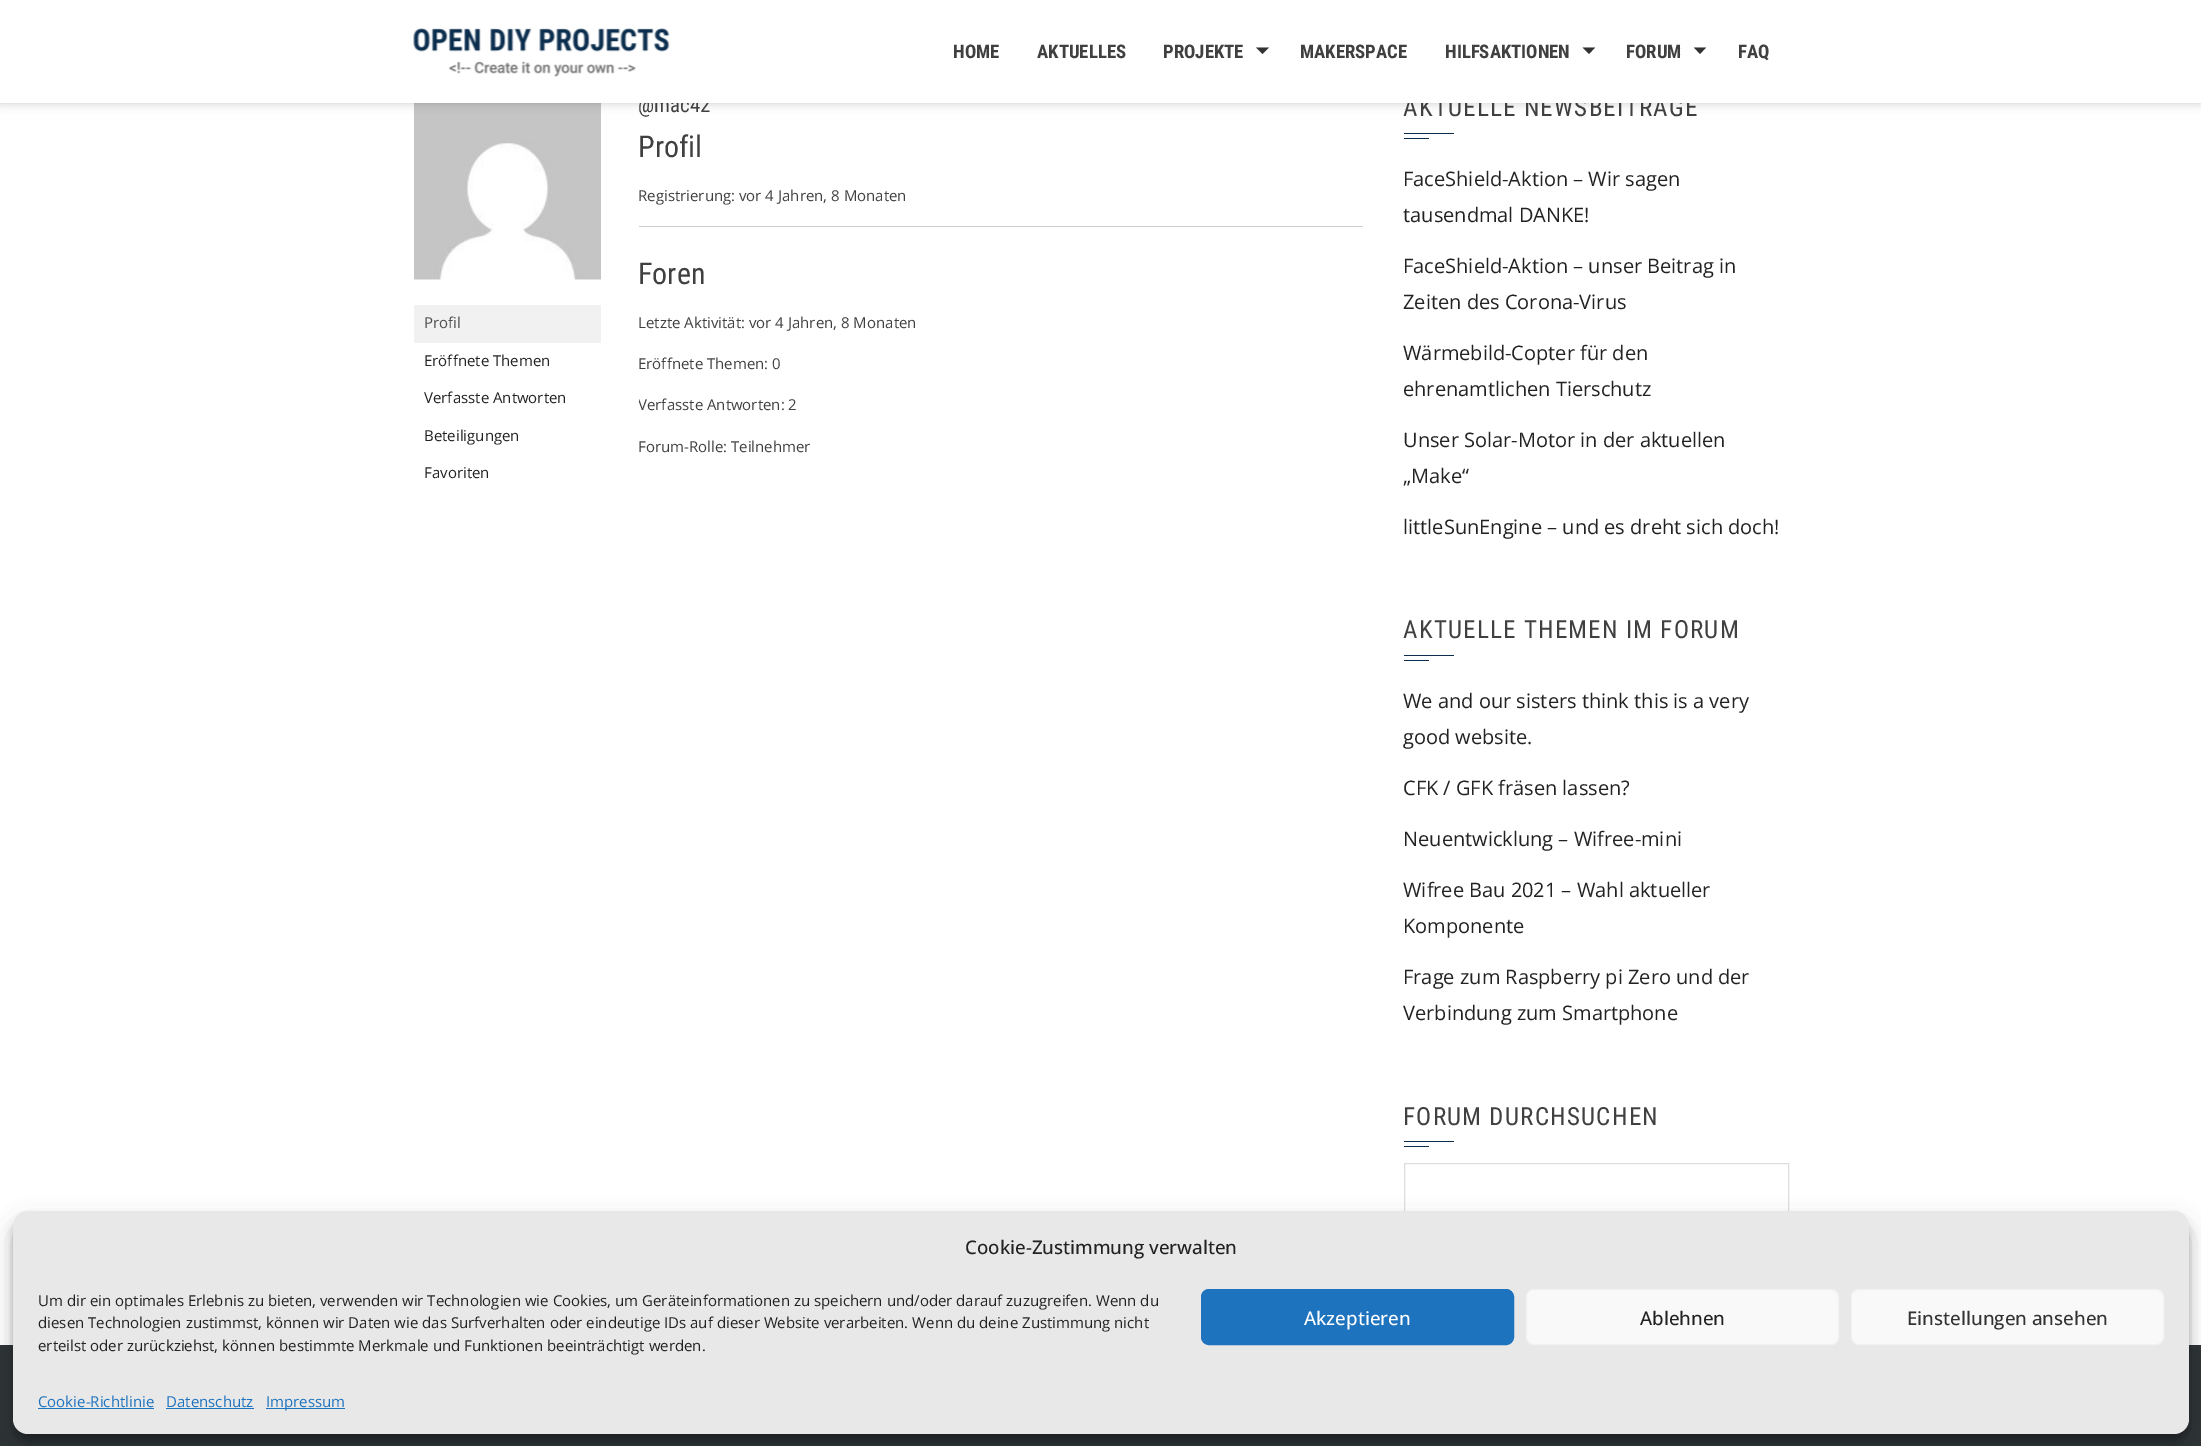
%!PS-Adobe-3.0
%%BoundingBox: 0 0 2201 1446
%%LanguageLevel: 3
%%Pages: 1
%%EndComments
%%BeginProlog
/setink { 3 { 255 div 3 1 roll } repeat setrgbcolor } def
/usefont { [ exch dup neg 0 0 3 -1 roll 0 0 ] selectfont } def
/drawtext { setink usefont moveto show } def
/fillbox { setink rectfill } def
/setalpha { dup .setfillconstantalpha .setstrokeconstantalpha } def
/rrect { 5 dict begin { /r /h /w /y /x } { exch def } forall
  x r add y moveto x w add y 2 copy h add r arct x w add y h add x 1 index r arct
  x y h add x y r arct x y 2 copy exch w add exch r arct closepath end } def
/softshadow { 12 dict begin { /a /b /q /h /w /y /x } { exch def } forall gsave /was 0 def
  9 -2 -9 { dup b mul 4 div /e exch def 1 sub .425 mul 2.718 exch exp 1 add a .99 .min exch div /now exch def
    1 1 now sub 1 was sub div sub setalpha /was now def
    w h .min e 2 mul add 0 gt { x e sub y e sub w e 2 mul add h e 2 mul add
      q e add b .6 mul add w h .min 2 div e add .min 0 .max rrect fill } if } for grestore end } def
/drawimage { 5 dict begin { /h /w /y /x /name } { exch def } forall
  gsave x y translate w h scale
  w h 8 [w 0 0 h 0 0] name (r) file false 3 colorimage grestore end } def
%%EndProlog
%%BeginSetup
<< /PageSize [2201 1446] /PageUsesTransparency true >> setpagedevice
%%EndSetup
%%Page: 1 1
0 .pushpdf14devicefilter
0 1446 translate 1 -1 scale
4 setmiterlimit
0 0 2201 1446 255 255 255 fillbox
(assets/img2.rgb) 414 103 187 177 drawimage
0 0 0 setink
0 0 2201 103 0 5 0.2 softshadow
(@mac42) 638 112 /RobotoCondensed-Regular 21 64 64 64 drawtext
/RobotoCondensed-Regular 25 usefont
1403 116 moveto 1.25 0 (AKTUELLE NEWSBEITRÄGE) ashow
0 0 2201 103 255 255 255 fillbox
(assets/img1.rgb) 413 28 257 49 drawimage
(HOME) 953 58 /RobotoCondensed-Bold 18.75 64 64 64 drawtext
(AKTUELLES) 1037 58 /RobotoCondensed-Bold 18.75 64 64 64 drawtext
(PROJEKTE) 1163 58 /RobotoCondensed-Bold 18.75 64 64 64 drawtext
51 51 51 setink
1256 47.5 moveto 1269 47.5 lineto 1262.5 54 lineto closepath fill
(MAKERSPACE) 1300 58 /RobotoCondensed-Bold 18.75 64 64 64 drawtext
(HILFSAKTIONEN) 1445 58 /RobotoCondensed-Bold 18.75 64 64 64 drawtext
51 51 51 setink
1582.5 47.5 moveto 1595 47.5 lineto 1589 54 lineto closepath fill
(FORUM) 1626 58 /RobotoCondensed-Bold 18.75 64 64 64 drawtext
51 51 51 setink
1694 47.5 moveto 1706 47.5 lineto 1700 54 lineto closepath fill
(FAQ) 1738 58 /RobotoCondensed-Bold 18.75 64 64 64 drawtext
414 305 187 38 241 241 241 fillbox
(Profil) 424 328 /OpenSans-Regular 15 78 78 78 drawtext
(Eröffnete Themen) 424 366 /OpenSans-Regular 15 34 34 34 drawtext
(Verfasste Antworten) 424 403 /OpenSans-Regular 15 34 34 34 drawtext
(Beteiligungen) 424 441 /OpenSans-Regular 15 34 34 34 drawtext
(Favoriten) 424 478 /OpenSans-Regular 15 34 34 34 drawtext
(Profil) 638 157 /RobotoCondensed-Regular 30 64 64 64 drawtext
(Registrierung: vor 4 Jahren, 8 Monaten) 638 201 /OpenSans-Regular 15 64 64 64 drawtext
639 226 724 1 204 204 204 fillbox
(Foren) 638 284 /RobotoCondensed-Regular 30 64 64 64 drawtext
(Letzte Aktivität: vor 4 Jahren, 8 Monaten) 638 328 /OpenSans-Regular 15 64 64 64 drawtext
(Eröffnete Themen: 0) 638 369 /OpenSans-Regular 15 64 64 64 drawtext
gsave
639 130 724 346 rectclip
(Verfasste Antworten: 2) 638 410 /OpenSans-Regular 15 64 64 64 drawtext
grestore
(Forum-Rolle: Teilnehmer) 638 452 /OpenSans-Regular 15 64 64 64 drawtext
1404 133 50 1 11 45 78 fillbox
1404 138 25 1 11 45 78 fillbox
(FaceShield-Aktion – Wir sagen) 1403 186 /OpenSans-Regular 20 34 34 34 drawtext
(tausendmal DANKE!) 1403 222 /OpenSans-Regular 20 34 34 34 drawtext
(FaceShield-Aktion – unser Beitrag in) 1403 273 /OpenSans-Regular 20 34 34 34 drawtext
(Zeiten des Corona-Virus) 1403 309 /OpenSans-Regular 20 34 34 34 drawtext
(Wärmebild-Copter für den) 1403 360 /OpenSans-Regular 20 34 34 34 drawtext
(ehrenamtlichen Tierschutz) 1403 396 /OpenSans-Regular 20 34 34 34 drawtext
(Unser Solar-Motor in der aktuellen) 1403 447 /OpenSans-Regular 20 34 34 34 drawtext
(„Make“) 1403 483 /OpenSans-Regular 20 34 34 34 drawtext
(littleSunEngine – und es dreht sich doch!) 1403 534 /OpenSans-Regular 20 34 34 34 drawtext
/RobotoCondensed-Regular 25 usefont
64 64 64 setink
1403 638 moveto 1.25 0 (AKTUELLE THEMEN IM FORUM) ashow
1404 655 50 1 11 45 78 fillbox
1404 660 25 1 11 45 78 fillbox
(We and our sisters think this is a very) 1403 708 /OpenSans-Regular 20 34 34 34 drawtext
(good website.) 1403 744 /OpenSans-Regular 20 34 34 34 drawtext
(CFK / GFK fräsen lassen?) 1403 795 /OpenSans-Regular 20 34 34 34 drawtext
(Neuentwicklung – Wifree-mini) 1403 846 /OpenSans-Regular 20 34 34 34 drawtext
(Wifree Bau 2021 – Wahl aktueller) 1403 897 /OpenSans-Regular 20 34 34 34 drawtext
(Komponente) 1403 933 /OpenSans-Regular 20 34 34 34 drawtext
(Frage zum Raspberry pi Zero und der) 1403 984 /OpenSans-Regular 20 34 34 34 drawtext
(Verbindung zum Smartphone) 1403 1020 /OpenSans-Regular 20 34 34 34 drawtext
/RobotoCondensed-Regular 25 usefont
64 64 64 setink
1403 1125 moveto 1.25 0 (FORUM DURCHSUCHEN) ashow
1404 1141 50 1 11 45 78 fillbox
1404 1146 25 1 11 45 78 fillbox
221 221 221 setink
1404.5 1163.5 384 57 rectstroke
0 1345 2201 101 46 51 54 fillbox
0 0 0 setink
13 1219 2176 222 15 4 0.23 softshadow
13 1224 2176 222 15 12.5 0.19 softshadow
232 232 232 setink
13 1211 2176 223 15 rrect fill
(Cookie-Zustimmung verwalten) 965 1254 /OpenSans-Medium 18.75 34 34 34 drawtext
(Um dir ein optimales Erlebnis zu bieten, verwenden wir Technologien wie Cookies, um Geräteinformationen zu speichern und/oder darauf zuzugreifen. Wenn du) 38 1306 /OpenSans-Regular 15 34 34 34 drawtext
(diesen Technologien zustimmst, können wir Daten wie das Surfverhalten oder eindeutige IDs auf dieser Website verarbeiten. Wenn du deine Zustimmung nicht) 38 1328 /OpenSans-Regular 15 34 34 34 drawtext
(erteilst oder zurückziehst, können bestimmte Merkmale und Funktionen beeinträchtigt werden.) 38 1351 /OpenSans-Regular 15 34 34 34 drawtext
30 115 190 setink
1201.5 1289.5 312 55 7.5 rrect gsave fill grestore
stroke
(Akzeptieren) 1304 1325 /OpenSans-Medium 18.75 255 255 255 drawtext
249 249 249 setink
1526.5 1289.5 312 55 7.5 rrect gsave fill grestore
242 242 242 setink
stroke
(Ablehnen) 1640 1325 /OpenSans-Medium 18.75 34 34 34 drawtext
249 249 249 setink
1851.5 1289.5 312 55 7.5 rrect gsave fill grestore
242 242 242 setink
stroke
(Einstellungen ansehen) 1907 1325 /OpenSans-Medium 18.75 51 51 51 drawtext
(Cookie-Richtlinie) 38 1407 /OpenSans-Regular 15 30 115 190 drawtext
38 1408 116 1 30 115 190 fillbox
(Datenschutz) 166 1407 /OpenSans-Regular 15 30 115 190 drawtext
166 1408 88 1 30 115 190 fillbox
266 1408 79 1 30 115 190 fillbox
(Impressum) 266 1407 /OpenSans-Regular 15 30 115 190 drawtext
.poppdf14devicefilter showpage
%%EOF
